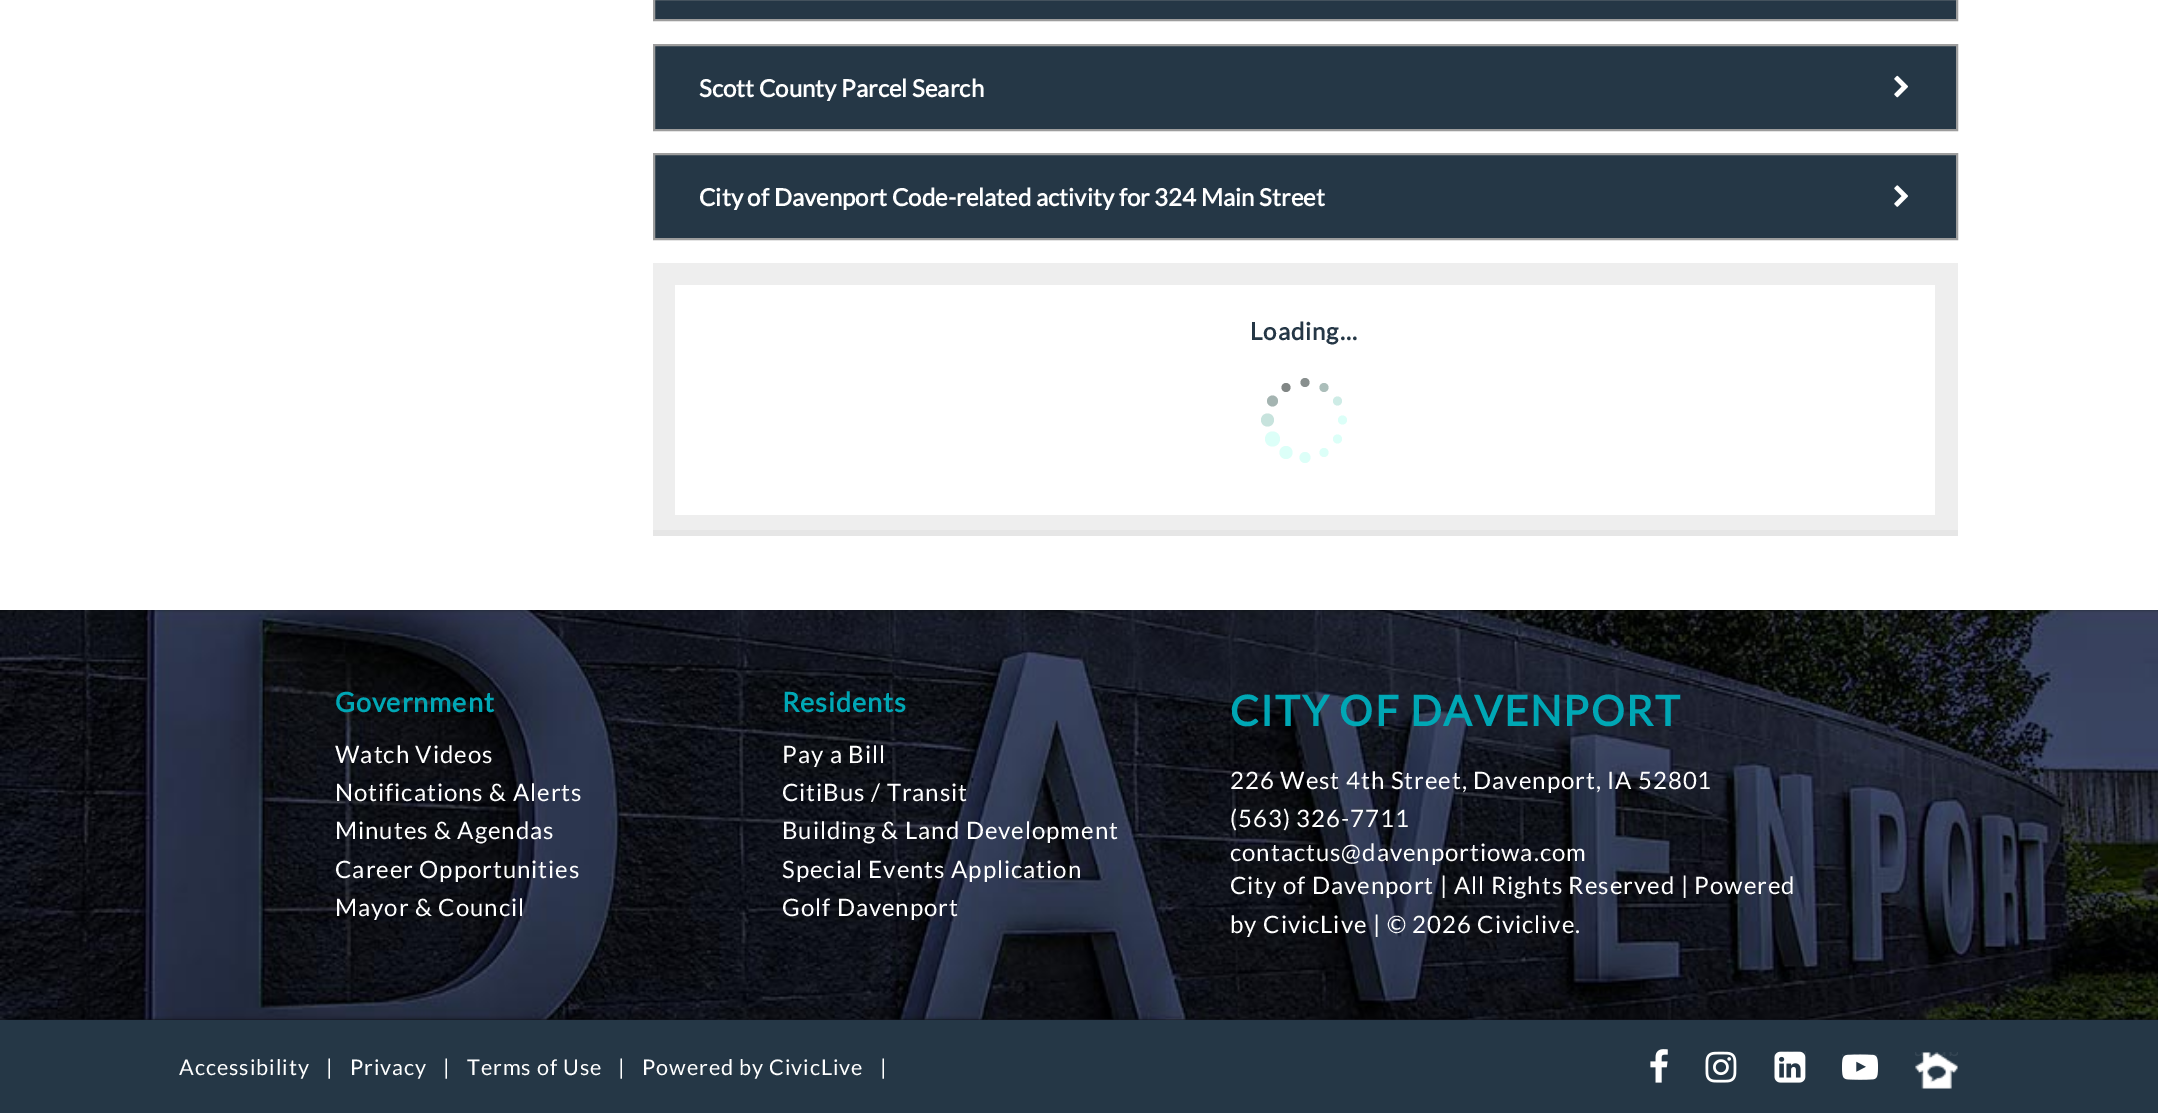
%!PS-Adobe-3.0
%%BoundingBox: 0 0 2158 1113
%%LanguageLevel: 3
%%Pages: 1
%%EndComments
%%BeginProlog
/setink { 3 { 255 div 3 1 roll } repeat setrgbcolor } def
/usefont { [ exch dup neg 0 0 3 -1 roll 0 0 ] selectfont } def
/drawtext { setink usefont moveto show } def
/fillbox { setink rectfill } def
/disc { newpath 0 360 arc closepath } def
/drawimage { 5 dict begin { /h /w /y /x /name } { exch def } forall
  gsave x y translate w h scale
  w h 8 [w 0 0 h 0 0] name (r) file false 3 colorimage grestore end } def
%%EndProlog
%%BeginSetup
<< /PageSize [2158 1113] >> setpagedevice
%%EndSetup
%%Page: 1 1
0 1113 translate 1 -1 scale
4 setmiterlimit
0 0 2158 1113 255 255 255 fillbox
37 55 70 setink
654 -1 moveto 1957 -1 lineto 1957 20 lineto 654 20 lineto closepath gsave fill grestore
157 157 157 setink
2 setlinewidth
stroke
37 55 70 setink
654 45 moveto 1957 45 lineto 1957 130 lineto 654 130 lineto closepath gsave fill grestore
157 157 157 setink
stroke
(Scott County Parcel Search) 699 97 /Lato-Bold 24 255 255 255 drawtext
(assets/img1.rgb) 1894 75 14 23 drawimage
37 55 70 setink
654 154 moveto 1957 154 lineto 1957 239 lineto 654 239 lineto closepath gsave fill grestore
157 157 157 setink
stroke
(City of Davenport Code-related activity for 324 Main Street) 699 206 /Lato-Bold 24 255 255 255 drawtext
(assets/img2.rgb) 1894 185 14 22 drawimage
653 263 1305 267 238 238 238 fillbox
653 530 1305 6 230 230 230 fillbox
675 285 1260 230 255 255 255 fillbox
37 55 70 setink
1250 340 moveto 0.95 0 (Loading...) ashow
129 134 133 setink
1286 387.5 4.5 disc fill
136 143 142 setink
1305 382.5 4.5 disc fill
171 190 186 setink
1324 387.5 4.5 disc fill
164 180 177 setink
1272.5 401 5.5 disc fill
206 236 230 setink
1337.5 401 4.5 disc fill
199 227 221 setink
1267.5 420 6.5 disc fill
220 255 248 setink
1342.5 420 4.5 disc fill
1286 452.5 6.5 disc fill
1272.5 439 7.5 disc fill
1337.5 439 4.5 disc fill
1305 457.5 5.5 disc fill
1324 452.5 4.5 disc fill
0 1019 2158 1 19 21 31 fillbox
(assets/img3.rgb) 0 610 2158 410 drawimage
/Lato-Bold 27 usefont
0 167 181 setink
335 712 moveto 0.95 0 (Government) ashow
/Lato-Regular 24 usefont
255 255 255 setink
335 763 moveto 0.95 0 (Watch Videos) ashow
335 801 moveto 0.95 0 (Notifications & Alerts) ashow
335 839 moveto 0.95 0 (Minutes & Agendas) ashow
335 878 moveto 0.95 0 (Career Opportunities) ashow
335 916 moveto 0.95 0 (Mayor & Council) ashow
/Lato-Bold 27 usefont
0 167 181 setink
782 712 moveto 0.95 0 (Residents) ashow
/Lato-Regular 24 usefont
255 255 255 setink
782 763 moveto 0.95 0 (Pay a Bill) ashow
782 801 moveto 0.95 0 (CitiBus / Transit) ashow
782 839 moveto 0.95 0 (Building & Land Development) ashow
782 878 moveto 0.95 0 (Special Events Application) ashow
782 916 moveto 0.95 0 (Golf Davenport) ashow
/Lato-Bold 42 usefont
0 167 181 setink
1230 726 moveto 1.7 0 (CITY OF DAVENPORT) ashow
/Lato-Regular 24 usefont
255 255 255 setink
1230 789 moveto 0.95 0 (226 West 4th Street, Davenport, IA) ashow
1638 789 moveto 0.95 0 (52801) ashow
1230 827 moveto 0.95 0 (\(563\) 326-7711) ashow
1230 861 moveto 0.95 0 (contactus@davenportiowa.com) ashow
1230 894 moveto 0.95 0 (City of Davenport | All Rights Reserved | Powered) ashow
1230 933 moveto 0.95 0 (by CivicLive | © 2026 Civiclive.) ashow
0 1020 2158 93 37 55 70 fillbox
/Lato-Regular 21.6 usefont
255 255 255 setink
179 1075 moveto 0.95 0 (Accessibility) ashow
326 1075 moveto 0.95 0 (|) ashow
350 1075 moveto 0.95 0 (Privacy) ashow
443 1075 moveto 0.95 0 (|) ashow
467 1075 moveto 0.95 0 (Terms of Use) ashow
618 1075 moveto 0.95 0 (|) ashow
642 1075 moveto 0.95 0 (Powered by CivicLive) ashow
880 1075 moveto 0.95 0 (|) ashow
(assets/img4.rgb) 1650 1049 18 34 drawimage
(assets/img5.rgb) 1705 1051 32 32 drawimage
(assets/img6.rgb) 1774 1051 32 32 drawimage
(assets/img7.rgb) 1842 1054 36 26 drawimage
(assets/img8.rgb) 1915 1052 43 37 drawimage
showpage
%%EOF
